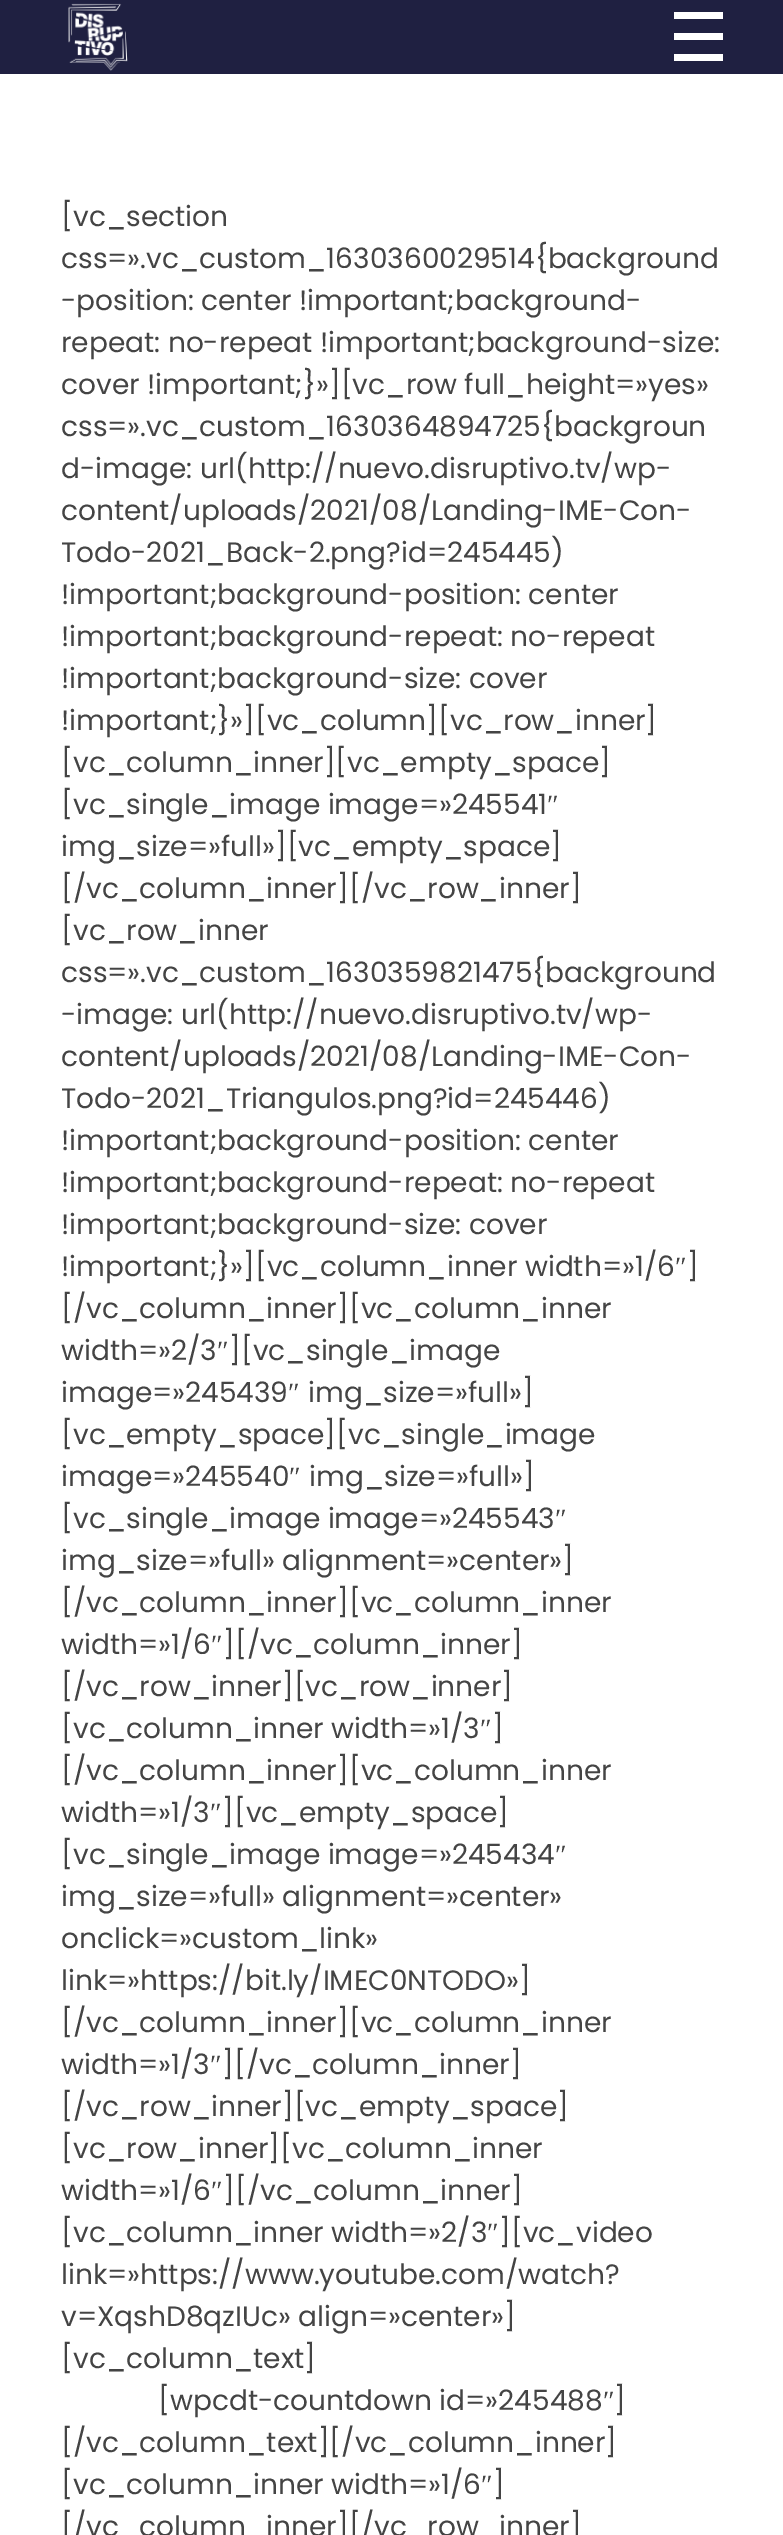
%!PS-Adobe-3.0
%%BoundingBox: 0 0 783 2535
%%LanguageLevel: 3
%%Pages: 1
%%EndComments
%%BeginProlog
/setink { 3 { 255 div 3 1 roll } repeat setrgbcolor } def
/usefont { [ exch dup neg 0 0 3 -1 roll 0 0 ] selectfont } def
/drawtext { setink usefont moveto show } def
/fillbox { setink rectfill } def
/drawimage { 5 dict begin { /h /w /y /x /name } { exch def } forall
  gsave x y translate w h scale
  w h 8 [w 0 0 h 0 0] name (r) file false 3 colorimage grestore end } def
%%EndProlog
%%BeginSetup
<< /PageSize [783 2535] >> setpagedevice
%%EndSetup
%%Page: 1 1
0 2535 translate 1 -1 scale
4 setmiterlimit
0 0 783 2535 255 255 255 fillbox
0 0 783 74 31 32 65 fillbox
(assets/img1.rgb) 68 3 60 68 drawimage
674 12 49 7 255 255 255 fillbox
674 33 49 7 255 255 255 fillbox
674 54 49 7 255 255 255 fillbox
([vc_section) 61 226 /Poppins-Regular 28 68 68 68 drawtext
(css=».vc_custom_1630360029514{background) 61 268 /Poppins-Regular 28 68 68 68 drawtext
(-position: center !important;background-) 61 310 /Poppins-Regular 28 68 68 68 drawtext
(repeat: no-repeat !important;background-size:) 61 352 /Poppins-Regular 28 68 68 68 drawtext
(cover !important;}»][vc_row full_height=»yes») 61 394 /Poppins-Regular 28 68 68 68 drawtext
(css=».vc_custom_1630364894725{backgroun) 61 436 /Poppins-Regular 28 68 68 68 drawtext
(d-image: url\(http://nuevo.disruptivo.tv/wp-) 61 478 /Poppins-Regular 28 68 68 68 drawtext
(content/uploads/2021/08/Landing-IME-Con-) 61 520 /Poppins-Regular 28 68 68 68 drawtext
(Todo-2021_Back-2.png?id=245445\)) 61 562 /Poppins-Regular 28 68 68 68 drawtext
(!important;background-position: center) 61 604 /Poppins-Regular 28 68 68 68 drawtext
(!important;background-repeat: no-repeat) 61 646 /Poppins-Regular 28 68 68 68 drawtext
(!important;background-size: cover) 61 688 /Poppins-Regular 28 68 68 68 drawtext
(!important;}»][vc_column][vc_row_inner]) 61 730 /Poppins-Regular 28 68 68 68 drawtext
([vc_column_inner][vc_empty_space]) 61 772 /Poppins-Regular 28 68 68 68 drawtext
([vc_single_image image=»245541) 61 814 /Poppins-Regular 28 68 68 68 drawtext
(″) 547 814 /LiberationSerif-Regular 28 68 68 68 drawtext
(img_size=»full»][vc_empty_space]) 61 856 /Poppins-Regular 28 68 68 68 drawtext
([/vc_column_inner][/vc_row_inner]) 61 898 /Poppins-Regular 28 68 68 68 drawtext
([vc_row_inner) 61 940 /Poppins-Regular 28 68 68 68 drawtext
(css=».vc_custom_1630359821475{background) 61 982 /Poppins-Regular 28 68 68 68 drawtext
(-image: url\(http://nuevo.disruptivo.tv/wp-) 61 1024 /Poppins-Regular 28 68 68 68 drawtext
(content/uploads/2021/08/Landing-IME-Con-) 61 1066 /Poppins-Regular 28 68 68 68 drawtext
(Todo-2021_Triangulos.png?id=245446\)) 61 1108 /Poppins-Regular 28 68 68 68 drawtext
(!important;background-position: center) 61 1150 /Poppins-Regular 28 68 68 68 drawtext
(!important;background-repeat: no-repeat) 61 1192 /Poppins-Regular 28 68 68 68 drawtext
(!important;background-size: cover) 61 1234 /Poppins-Regular 28 68 68 68 drawtext
(!important;}»][vc_column_inner width=»1/6) 61 1276 /Poppins-Regular 28 68 68 68 drawtext
(″) 675 1276 /LiberationSerif-Regular 28 68 68 68 drawtext
(]) 687 1276 /Poppins-Regular 28 68 68 68 drawtext
([/vc_column_inner][vc_column_inner) 61 1318 /Poppins-Regular 28 68 68 68 drawtext
(width=»2/3) 61 1360 /Poppins-Regular 28 68 68 68 drawtext
(″) 217 1360 /LiberationSerif-Regular 28 68 68 68 drawtext
(][vc_single_image) 229 1360 /Poppins-Regular 28 68 68 68 drawtext
(image=»245439) 61 1402 /Poppins-Regular 28 68 68 68 drawtext
(″) 288 1402 /LiberationSerif-Regular 28 68 68 68 drawtext
(img_size=»full»]) 308 1402 /Poppins-Regular 28 68 68 68 drawtext
([vc_empty_space][vc_single_image) 61 1444 /Poppins-Regular 28 68 68 68 drawtext
(image=»245540) 61 1486 /Poppins-Regular 28 68 68 68 drawtext
(″) 289 1486 /LiberationSerif-Regular 28 68 68 68 drawtext
(img_size=»full»]) 309 1486 /Poppins-Regular 28 68 68 68 drawtext
([vc_single_image image=»245543) 61 1528 /Poppins-Regular 28 68 68 68 drawtext
(″) 555 1528 /LiberationSerif-Regular 28 68 68 68 drawtext
(img_size=»full» alignment=»center»]) 61 1570 /Poppins-Regular 28 68 68 68 drawtext
([/vc_column_inner][vc_column_inner) 61 1612 /Poppins-Regular 28 68 68 68 drawtext
(width=»1/6) 61 1654 /Poppins-Regular 28 68 68 68 drawtext
(″) 211 1654 /LiberationSerif-Regular 28 68 68 68 drawtext
(][/vc_column_inner]) 223 1654 /Poppins-Regular 28 68 68 68 drawtext
([/vc_row_inner][vc_row_inner]) 61 1696 /Poppins-Regular 28 68 68 68 drawtext
([vc_column_inner width=»1/3) 61 1738 /Poppins-Regular 28 68 68 68 drawtext
(″) 480 1738 /LiberationSerif-Regular 28 68 68 68 drawtext
(]) 492 1738 /Poppins-Regular 28 68 68 68 drawtext
([/vc_column_inner][vc_column_inner) 61 1780 /Poppins-Regular 28 68 68 68 drawtext
(width=»1/3) 61 1822 /Poppins-Regular 28 68 68 68 drawtext
(″) 210 1822 /LiberationSerif-Regular 28 68 68 68 drawtext
(][vc_empty_space]) 222 1822 /Poppins-Regular 28 68 68 68 drawtext
([vc_single_image image=»245434) 61 1864 /Poppins-Regular 28 68 68 68 drawtext
(″) 555 1864 /LiberationSerif-Regular 28 68 68 68 drawtext
(img_size=»full» alignment=»center») 61 1906 /Poppins-Regular 28 68 68 68 drawtext
(onclick=»custom_link») 61 1948 /Poppins-Regular 28 68 68 68 drawtext
(link=»https://bit.ly/IMEC0NTODO»]) 61 1990 /Poppins-Regular 28 68 68 68 drawtext
([/vc_column_inner][vc_column_inner) 61 2032 /Poppins-Regular 28 68 68 68 drawtext
(width=»1/3) 61 2074 /Poppins-Regular 28 68 68 68 drawtext
(″) 210 2074 /LiberationSerif-Regular 28 68 68 68 drawtext
(][/vc_column_inner]) 222 2074 /Poppins-Regular 28 68 68 68 drawtext
([/vc_row_inner][vc_empty_space]) 61 2116 /Poppins-Regular 28 68 68 68 drawtext
([vc_row_inner][vc_column_inner) 61 2158 /Poppins-Regular 28 68 68 68 drawtext
(width=»1/6) 61 2200 /Poppins-Regular 28 68 68 68 drawtext
(″) 211 2200 /LiberationSerif-Regular 28 68 68 68 drawtext
(][/vc_column_inner]) 223 2200 /Poppins-Regular 28 68 68 68 drawtext
([vc_column_inner width=»2/3) 61 2242 /Poppins-Regular 28 68 68 68 drawtext
(″) 487 2242 /LiberationSerif-Regular 28 68 68 68 drawtext
(][vc_video) 499 2242 /Poppins-Regular 28 68 68 68 drawtext
(link=»https://www.youtube.com/watch?) 61 2284 /Poppins-Regular 28 68 68 68 drawtext
(v=XqshD8qzIUc» align=»center»]) 61 2326 /Poppins-Regular 28 68 68 68 drawtext
([vc_column_text]) 61 2368 /Poppins-Regular 28 68 68 68 drawtext
([wpcdt-countdown id=»245488) 158 2410 /Poppins-Regular 28 68 68 68 drawtext
(″) 603 2410 /LiberationSerif-Regular 28 68 68 68 drawtext
(]) 614 2410 /Poppins-Regular 28 68 68 68 drawtext
([/vc_column_text][/vc_column_inner]) 61 2452 /Poppins-Regular 28 68 68 68 drawtext
([vc_column_inner width=»1/6) 61 2494 /Poppins-Regular 28 68 68 68 drawtext
(″) 481 2494 /LiberationSerif-Regular 28 68 68 68 drawtext
(]) 493 2494 /Poppins-Regular 28 68 68 68 drawtext
([/vc_column_inner][/vc_row_inner]) 61 2536 /Poppins-Regular 28 68 68 68 drawtext
showpage
%%EOF
